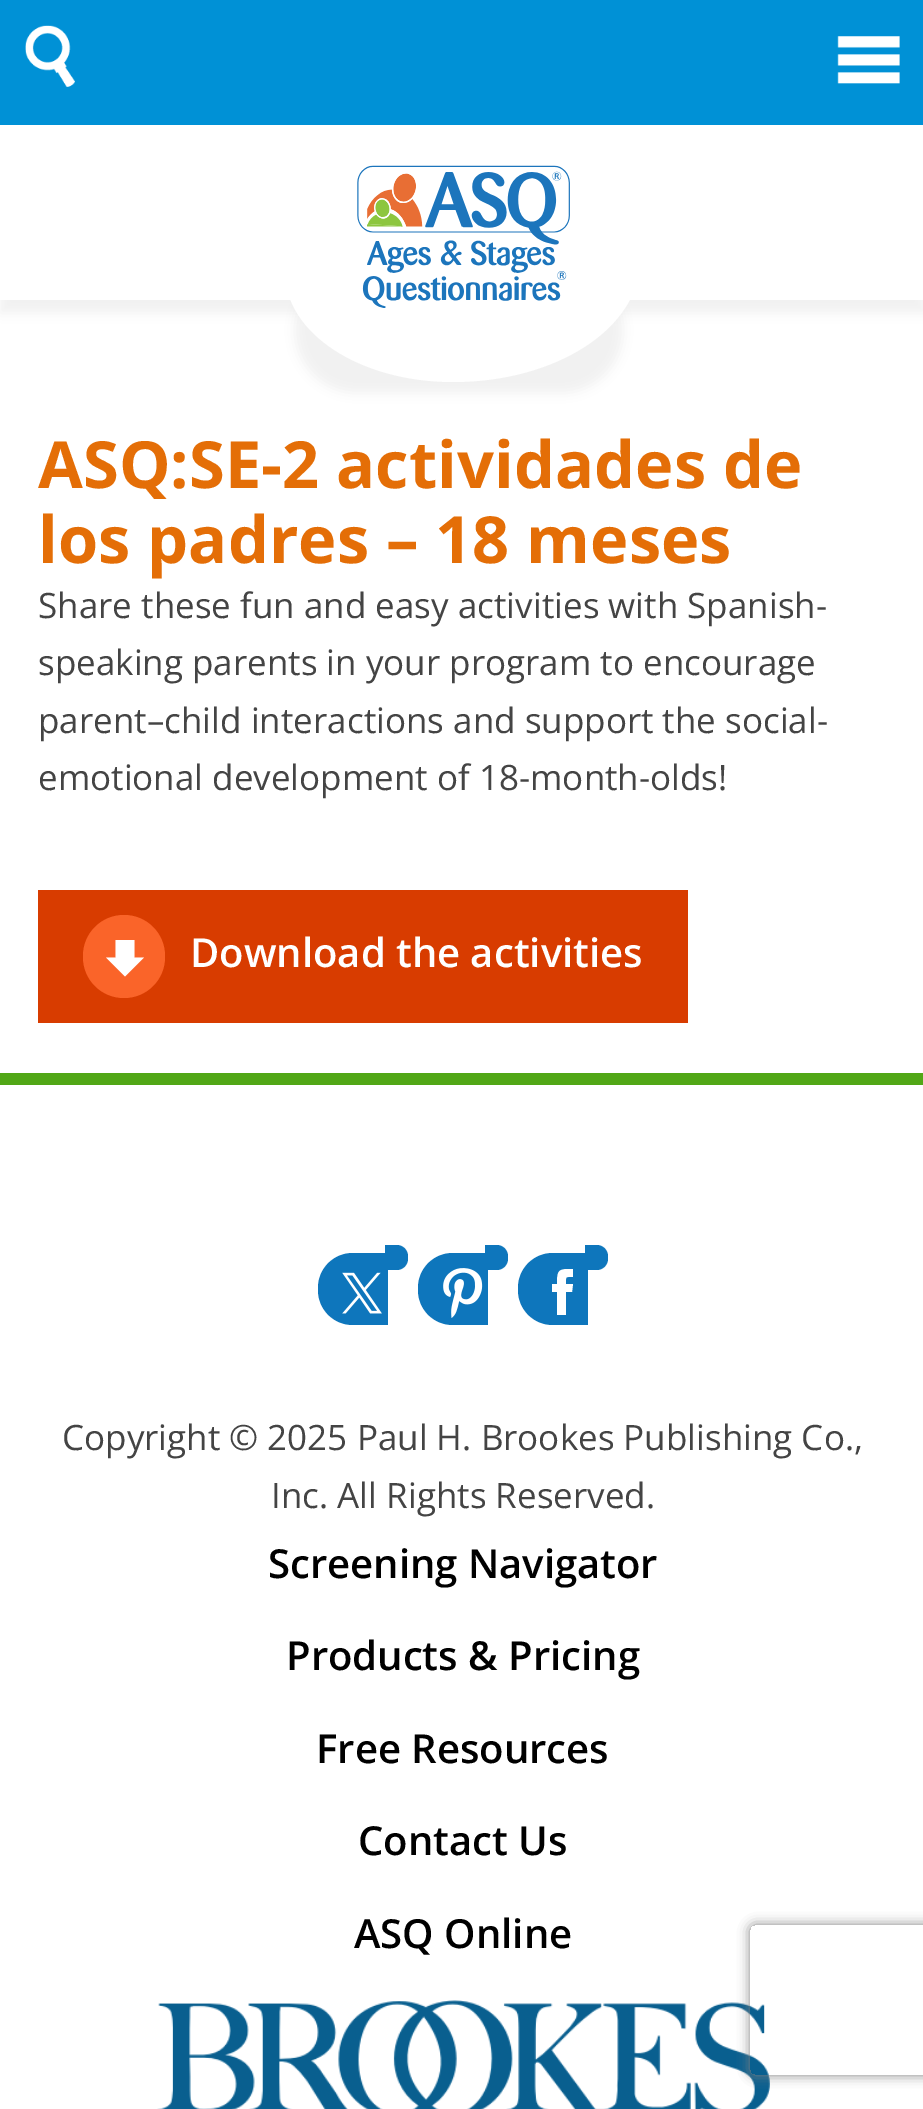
%!PS-Adobe-3.0
%%BoundingBox: 0 0 923 2109
%%LanguageLevel: 3
%%Pages: 1
%%EndComments
%%BeginProlog
/setink { 3 { 255 div 3 1 roll } repeat setrgbcolor } def
/usefont { [ exch dup neg 0 0 3 -1 roll 0 0 ] selectfont } def
/drawtext { setink usefont moveto show } def
/fillbox { setink rectfill } def
/setalpha { dup .setfillconstantalpha .setstrokeconstantalpha } def
/rrect { 5 dict begin { /r /h /w /y /x } { exch def } forall
  x r add y moveto x w add y 2 copy h add r arct x w add y h add x 1 index r arct
  x y h add x y r arct x y 2 copy exch w add exch r arct closepath end } def
/softshadow { 12 dict begin { /a /b /q /h /w /y /x } { exch def } forall gsave /was 0 def
  9 -2 -9 { dup b mul 4 div /e exch def 1 sub .425 mul 2.718 exch exp 1 add a .99 .min exch div /now exch def
    1 1 now sub 1 was sub div sub setalpha /was now def
    w h .min e 2 mul add 0 gt { x e sub y e sub w e 2 mul add h e 2 mul add
      q e add b .6 mul add w h .min 2 div e add .min 0 .max rrect fill } if } for grestore end } def
/drawimage { 5 dict begin { /h /w /y /x /name } { exch def } forall
  gsave x y translate w h scale
  w h 8 [w 0 0 h 0 0] name (r) file false 3 colorimage grestore end } def
%%EndProlog
%%BeginSetup
<< /PageSize [923 2109] /PageUsesTransparency true >> setpagedevice
%%EndSetup
%%Page: 1 1
0 .pushpdf14devicefilter
0 2109 translate 1 -1 scale
4 setmiterlimit
0 0 923 2109 255 255 255 fillbox
0 0 0 setink
0 13 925 300 0 6 0.05 softshadow
0 0 923 125 0 145 214 fillbox
(assets/img1.rgb) 25 25 50 62 drawimage
(assets/img2.rgb) 837 36 63 48 drawimage
0 125 923 175 255 255 255 fillbox
0 0 0 setink
295 268 328 125 103 6 0.05 softshadow
255 255 255 setink
285 150 moveto 640 150 lineto 640 260 lineto 640 328 556 382 453 382 curveto 360 382 285 333 285 272 curveto closepath fill
(assets/img3.rgb) 357 165 213 143 drawimage
(ASQ:SE-2 actividades de) 38 488 /OpenSans-Bold 65 228 110 7 drawtext
(los padres – 18 meses) 38 563 /OpenSans-Bold 65 228 110 7 drawtext
(Share these fun and easy activities with Spanish-) 38 618 /OpenSans-Regular 35 68 68 68 drawtext
(speaking parents in your program to encourage) 38 675 /OpenSans-Regular 35 68 68 68 drawtext
(parent–child interactions and support the social-) 38 733 /OpenSans-Regular 35 68 68 68 drawtext
(emotional development of 18-month-olds!) 38 790 /OpenSans-Regular 35 68 68 68 drawtext
38 890 650 133 216 60 0 fillbox
250 100 41 setink
83 915 82 83 41 rrect fill
255 255 255 setink
144 957.5 moveto 125 976.5 lineto 106 957.5 lineto 115.5 957.5 lineto 115.5 940 lineto 134.5 940 lineto 134.5 957.5 lineto closepath fill
(Download the activities) 190 967 /OpenSans-SemiBold 40 255 255 255 drawtext
0 1073 923 12 81 167 22 fillbox
14 118 188 setink
353 1253 moveto 388 1253 lineto 388 1325 lineto 353 1325 lineto 333.5 1325 318 1309.5 318 1290 curveto 318 1288 lineto 318 1268.5 333.5 1253 353 1253 curveto closepath fill
385 1245 moveto 396.5 1245 lineto 403 1245 408 1250 408 1256.5 curveto 408 1258.5 lineto 408 1265 403 1270 396.5 1270 curveto 385 1270 lineto closepath fill
(assets/img4.rgb) 342 1272 40 42 drawimage
453 1253 moveto 488 1253 lineto 488 1325 lineto 453 1325 lineto 433.5 1325 418 1309.5 418 1290 curveto 418 1288 lineto 418 1268.5 433.5 1253 453 1253 curveto closepath fill
485 1245 moveto 496.5 1245 lineto 503 1245 508 1250 508 1256.5 curveto 508 1258.5 lineto 508 1265 503 1270 496.5 1270 curveto 485 1270 lineto closepath fill
(assets/img5.rgb) 443 1268 40 50 drawimage
553 1253 moveto 588 1253 lineto 588 1325 lineto 553 1325 lineto 533.5 1325 518 1309.5 518 1290 curveto 518 1288 lineto 518 1268.5 533.5 1253 553 1253 curveto closepath fill
585 1245 moveto 596.5 1245 lineto 603 1245 608 1250 608 1256.5 curveto 608 1258.5 lineto 608 1265 603 1270 596.5 1270 curveto 585 1270 lineto closepath fill
255 255 255 setink
566 1284 moveto 573 1284 lineto 572 1292 lineto 566 1292 lineto 566 1315 lineto 557 1315 lineto 557 1292 lineto 552 1292 lineto 552 1284 lineto 557 1284 lineto 557 1269 559 1269 573 1269 curveto 573 1277 lineto 565 1277 566 1276 566 1284 curveto closepath fill
(Copyright © 2025 Paul H. Brookes Publishing Co.,) 62 1450 /OpenSans-Regular 35 68 68 68 drawtext
(Inc. All Rights Reserved.) 271 1508 /OpenSans-Regular 35 68 68 68 drawtext
(Screening Navigator) 268 1578 /OpenSans-SemiBold 40 0 0 0 drawtext
(Products & Pricing) 286 1670 /OpenSans-SemiBold 40 0 0 0 drawtext
(Free Resources) 316 1763 /OpenSans-SemiBold 40 0 0 0 drawtext
(Contact Us) 358 1855 /OpenSans-SemiBold 40 0 0 0 drawtext
(ASQ Online) 354 1948 /OpenSans-SemiBold 40 0 0 0 drawtext
(assets/img6.rgb) 157 2000 613 109 drawimage
gsave
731 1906 moveto 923 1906 lineto 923 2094 lineto 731 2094 lineto closepath 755 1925 moveto 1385 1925 lineto 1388 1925 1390 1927 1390 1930 curveto 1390 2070 lineto 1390 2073 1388 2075 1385 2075 curveto 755 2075 lineto 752 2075 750 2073 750 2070 curveto 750 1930 lineto 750 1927 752 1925 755 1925 curveto closepath eoclip newpath
128 128 128 setink
750 1925 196 150 5 6 1 softshadow
grestore
.poppdf14devicefilter showpage
%%EOF
